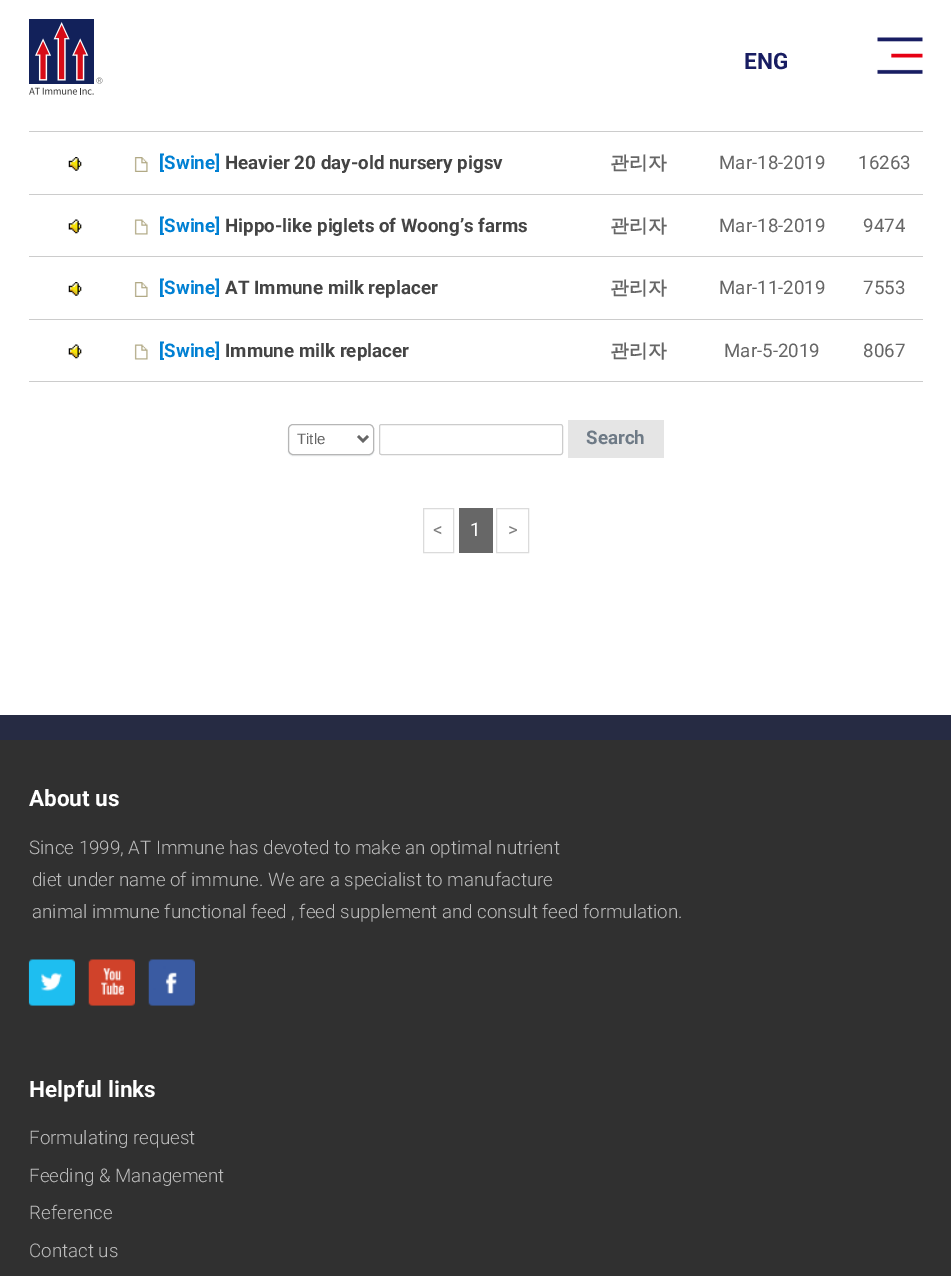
%!PS-Adobe-3.0
%%BoundingBox: 0 0 951 1276
%%LanguageLevel: 3
%%Pages: 1
%%EndComments
%%BeginProlog
/setink { 3 { 255 div 3 1 roll } repeat setrgbcolor } def
/usefont { [ exch dup neg 0 0 3 -1 roll 0 0 ] selectfont } def
/drawtext { setink usefont moveto show } def
/fillbox { setink rectfill } def
/setalpha { dup .setfillconstantalpha .setstrokeconstantalpha } def
/rrect { 5 dict begin { /r /h /w /y /x } { exch def } forall
  x r add y moveto x w add y 2 copy h add r arct x w add y h add x 1 index r arct
  x y h add x y r arct x y 2 copy exch w add exch r arct closepath end } def
/softshadow { 12 dict begin { /a /b /q /h /w /y /x } { exch def } forall gsave /was 0 def
  9 -2 -9 { dup b mul 4 div /e exch def 1 sub .425 mul 2.718 exch exp 1 add a .99 .min exch div /now exch def
    1 1 now sub 1 was sub div sub setalpha /was now def
    w h .min e 2 mul add 0 gt { x e sub y e sub w e 2 mul add h e 2 mul add
      q e add b .6 mul add w h .min 2 div e add .min 0 .max rrect fill } if } for grestore end } def
/drawimage { 5 dict begin { /h /w /y /x /name } { exch def } forall
  gsave x y translate w h scale
  w h 8 [w 0 0 h 0 0] name (r) file false 3 colorimage grestore end } def
%%EndProlog
%%BeginSetup
<< /PageSize [951 1276] /PageUsesTransparency true >> setpagedevice
%%EndSetup
%%Page: 1 1
0 .pushpdf14devicefilter
0 1276 translate 1 -1 scale
4 setmiterlimit
0 0 951 1276 38 43 67 fillbox
0 0 951 715 255 255 255 fillbox
(assets/img1.rgb) 29 19 74 76 drawimage
(ENG) 744 69 /Roboto-Bold 22.5 24 29 98 drawtext
(assets/img2.rgb) 877 37 46 37 drawimage
29 131 894 1 204 204 204 fillbox
29 194 894 1 204 204 204 fillbox
(assets/img3.rgb) 68 157 14 14 drawimage
(assets/img4.rgb) 134 157 14 15 drawimage
([Swine]) 159 169 /Roboto-Bold 18.75 0 128 211 drawtext
(Heavier 20 day-old nursery pigsv) 225 169 /Roboto-Bold 18.75 68 68 68 drawtext
(관리자) 610 169 /WenQuanYiZenHei-Bold 18.75 102 102 102 drawtext
(Mar-18-2019) 719 169 /Roboto-Regular 18.75 102 102 102 drawtext
(16263) 858 169 /Roboto-Regular 18.75 102 102 102 drawtext
29 256 894 1 204 204 204 fillbox
(assets/img5.rgb) 68 219 14 15 drawimage
(assets/img6.rgb) 134 219 14 16 drawimage
([Swine]) 159 232 /Roboto-Bold 18.75 0 128 211 drawtext
(Hippo-like piglets of Woong’s farms) 225 232 /Roboto-Bold 18.75 68 68 68 drawtext
(관리자) 610 232 /WenQuanYiZenHei-Bold 18.75 102 102 102 drawtext
(Mar-18-2019) 719 232 /Roboto-Regular 18.75 102 102 102 drawtext
(9474) 863 232 /Roboto-Regular 18.75 102 102 102 drawtext
29 319 894 1 204 204 204 fillbox
(assets/img3.rgb) 68 282 14 14 drawimage
(assets/img4.rgb) 134 282 14 15 drawimage
([Swine]) 159 294 /Roboto-Bold 18.75 0 128 211 drawtext
(AT Immune milk replacer) 225 294 /Roboto-Bold 18.75 68 68 68 drawtext
(관리자) 610 294 /WenQuanYiZenHei-Bold 18.75 102 102 102 drawtext
(Mar-11-2019) 719 294 /Roboto-Regular 18.75 102 102 102 drawtext
(7553) 863 294 /Roboto-Regular 18.75 102 102 102 drawtext
29 381 894 1 204 204 204 fillbox
(assets/img5.rgb) 68 344 14 15 drawimage
(assets/img6.rgb) 134 344 14 16 drawimage
([Swine]) 159 357 /Roboto-Bold 18.75 0 128 211 drawtext
(Immune milk replacer) 225 357 /Roboto-Bold 18.75 68 68 68 drawtext
(관리자) 610 357 /WenQuanYiZenHei-Bold 18.75 102 102 102 drawtext
(Mar-5-2019) 724 357 /Roboto-Regular 18.75 102 102 102 drawtext
(8067) 863 357 /Roboto-Regular 18.75 102 102 102 drawtext
233 236 237 setink
288 425 86 31 5 0.5 1 softshadow
255 255 255 setink
288.5 424.5 85 30 4.5 rrect gsave fill grestore
182 182 182 setink
stroke
102 102 102 setink
2.5 setlinewidth
358 436 moveto 363 441 lineto 368 436 lineto stroke
(Title) 297 444 /LiberationSans-Regular 15 102 102 102 drawtext
204 204 204 setink
1 setlinewidth
379.5 424.5 183 30 2 rrect stroke
568 420 96 38 229 229 229 fillbox
(Search) 586 444 /Roboto-Bold 18.75 110 122 134 drawtext
219 219 219 setink
423.5 508.5 30 44 rectstroke
(<) 433 536 /Roboto-Regular 18.75 128 128 128 drawtext
459 508 34 45 103 103 103 fillbox
(1) 470 536 /Roboto-Regular 18.75 255 255 255 drawtext
219 219 219 setink
496.5 508.5 32 44 rectstroke
(>) 508 536 /Roboto-Regular 18.75 128 128 128 drawtext
0 740 951 536 48 48 48 fillbox
(About us) 29 806 /Roboto-Bold 22.5 255 255 255 drawtext
(Since 1999, AT Immune has devoted to make an optimal nutrient) 29 854 /Roboto-Light 18.75 189 189 189 drawtext
(diet under name of immune. We are a specialist to manufacture) 32 886 /Roboto-Light 18.75 189 189 189 drawtext
(animal immune functional feed , feed supplement and consult feed formulation.) 32 918 /Roboto-Light 18.75 189 189 189 drawtext
(assets/img7.rgb) 28 959 47 47 drawimage
(assets/img8.rgb) 88 959 47 47 drawimage
(assets/img9.rgb) 148 959 47 47 drawimage
(Helpful links) 29 1097 /Roboto-Bold 22.5 255 255 255 drawtext
(Formulating request) 29 1144 /Roboto-Light 18.75 189 189 189 drawtext
(Feeding & Management) 29 1182 /Roboto-Light 18.75 189 189 189 drawtext
(Reference) 29 1219 /Roboto-Light 18.75 189 189 189 drawtext
(Contact us) 29 1257 /Roboto-Light 18.75 189 189 189 drawtext
.poppdf14devicefilter showpage
%%EOF
